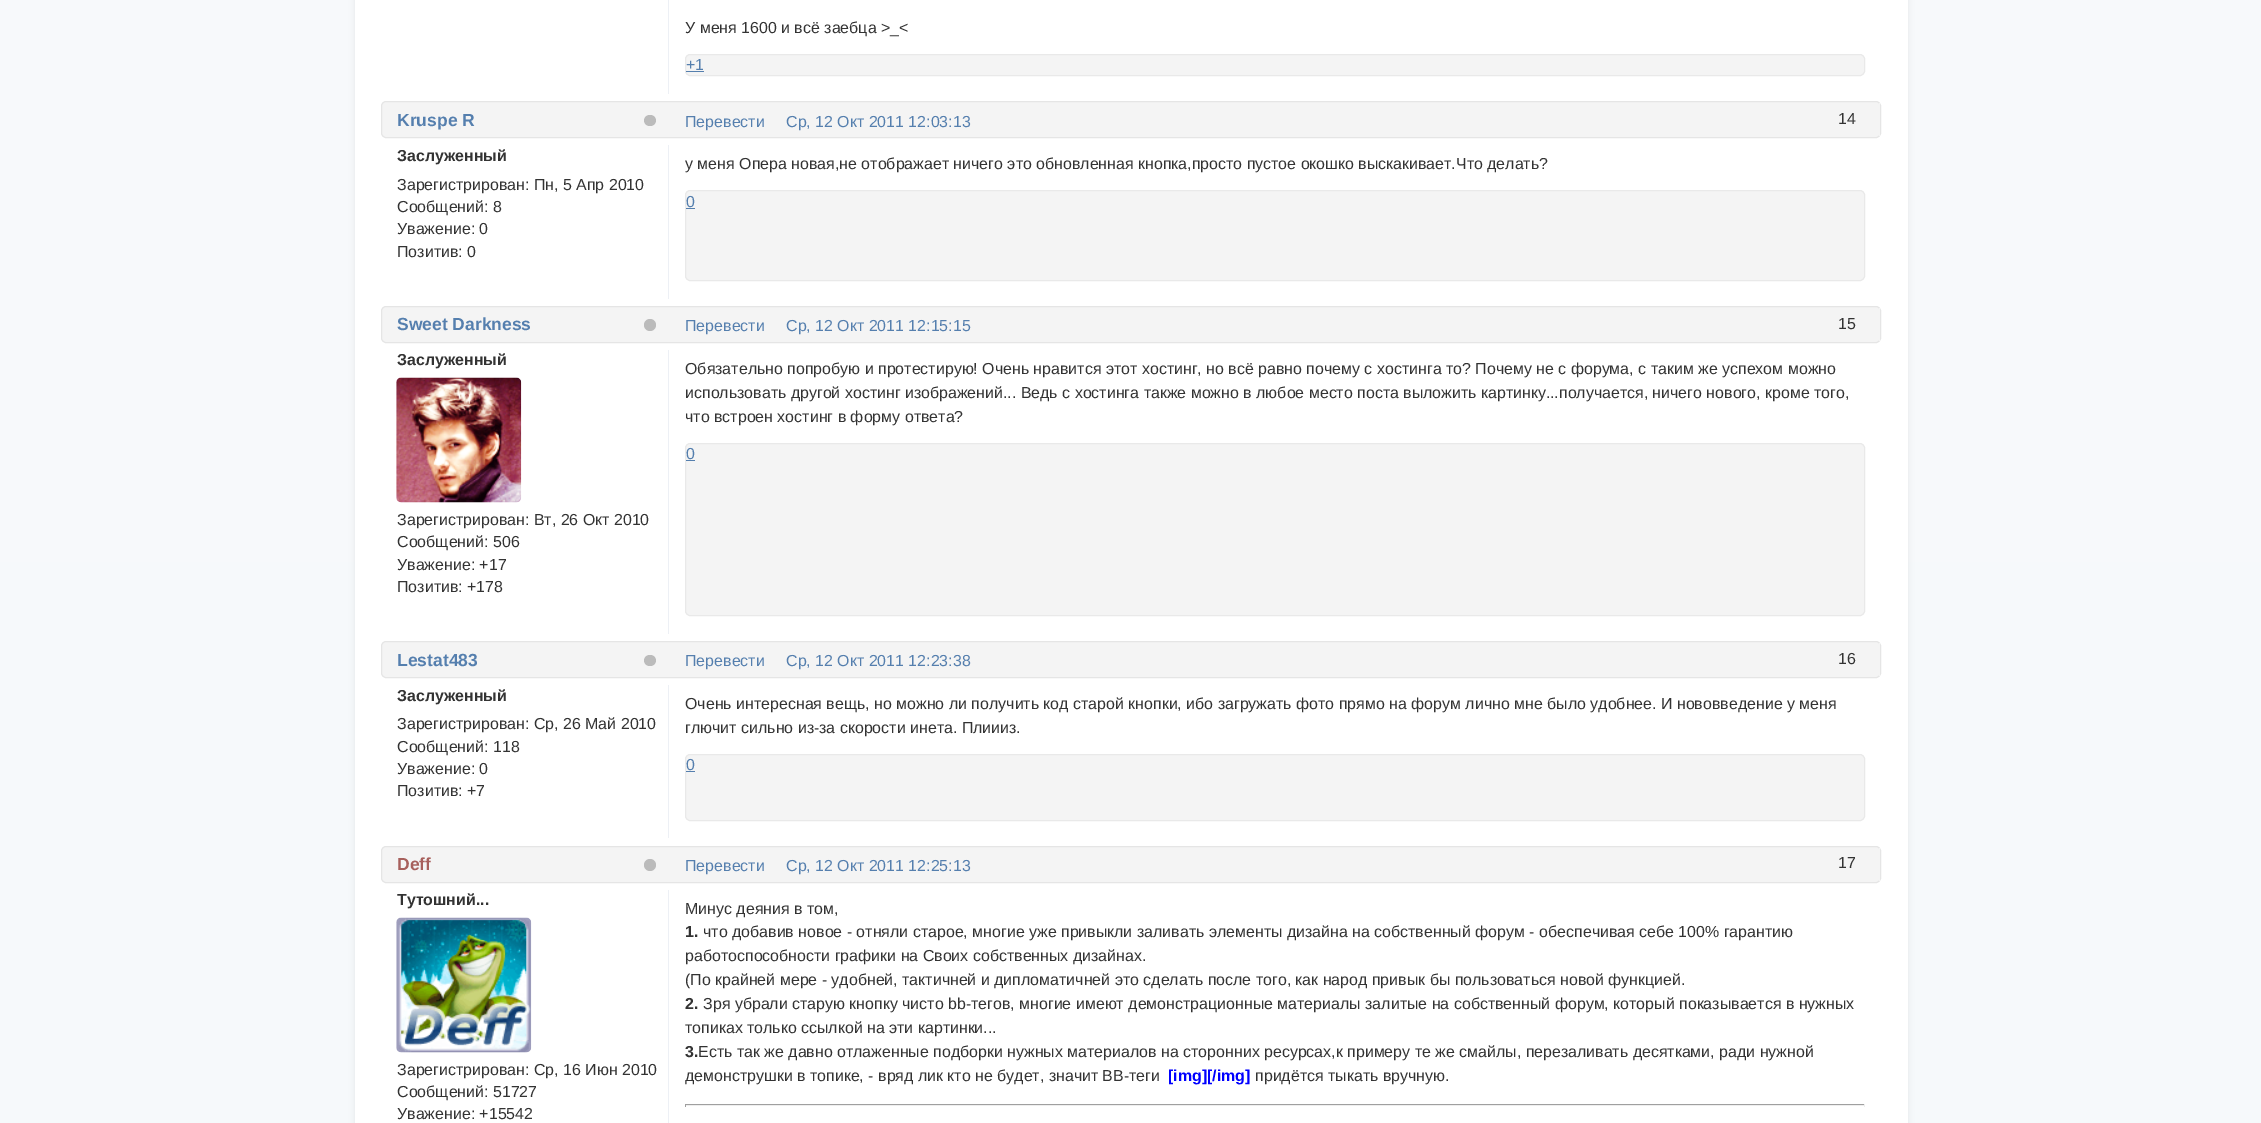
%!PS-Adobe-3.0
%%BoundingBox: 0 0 2261 1123
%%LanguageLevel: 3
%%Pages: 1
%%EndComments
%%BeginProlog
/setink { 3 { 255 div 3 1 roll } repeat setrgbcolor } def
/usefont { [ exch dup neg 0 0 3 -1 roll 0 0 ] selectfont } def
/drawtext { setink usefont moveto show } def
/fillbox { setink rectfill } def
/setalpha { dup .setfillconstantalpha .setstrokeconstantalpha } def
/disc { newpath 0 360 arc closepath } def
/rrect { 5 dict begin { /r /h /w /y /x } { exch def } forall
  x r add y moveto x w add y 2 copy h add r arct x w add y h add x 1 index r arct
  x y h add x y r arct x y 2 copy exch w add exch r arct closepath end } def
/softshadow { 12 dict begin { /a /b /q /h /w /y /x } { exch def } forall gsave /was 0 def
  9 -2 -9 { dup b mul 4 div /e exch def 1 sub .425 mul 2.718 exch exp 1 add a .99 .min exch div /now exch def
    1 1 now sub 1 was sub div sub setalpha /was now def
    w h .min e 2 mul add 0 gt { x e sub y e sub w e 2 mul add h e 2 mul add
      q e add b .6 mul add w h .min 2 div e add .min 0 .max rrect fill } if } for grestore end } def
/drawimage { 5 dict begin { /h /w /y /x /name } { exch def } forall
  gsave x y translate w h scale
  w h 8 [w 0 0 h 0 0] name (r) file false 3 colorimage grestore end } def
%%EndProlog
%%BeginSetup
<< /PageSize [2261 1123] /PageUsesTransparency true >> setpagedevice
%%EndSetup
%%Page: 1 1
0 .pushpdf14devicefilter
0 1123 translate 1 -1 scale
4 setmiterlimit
0 0 2261 1123 255 255 255 fillbox
gsave 0 0 moveto 2261 0 lineto 2261 1123 lineto 0 1123 lineto closepath clip newpath
<< /ShadingType 2 /ColorSpace /DeviceRGB /Coords [1131 -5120 1131 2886] /Extend [true true] /Function << /FunctionType 3 /Domain [0 1] /Functions [<< /FunctionType 2 /Domain [0 1] /C0 [0.973 0.973 0.973] /C1 [0.973 0.973 0.973] /N 1 >> << /FunctionType 2 /Domain [0 1] /C0 [0.973 0.973 0.973] /C1 [0.965 0.976 0.988] /N 1 >> << /FunctionType 2 /Domain [0 1] /C0 [0.965 0.976 0.988] /C1 [0.965 0.976 0.988] /N 1 >>] /Bounds [0.02 0.88] /Encode [0 1 0 1 0 1] >> >> shfill grestore
0 0 0 setink
355 -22 1553 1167 13 3 0.07 softshadow
355 0 1553 1123 255 255 255 fillbox
668 0 1 94 237 240 245 fillbox
(У меня 1600 и всё заебца >_<) 685 33 /LiberationSans-Regular 15.95 51 51 51 drawtext
244 244 244 setink
685.5 54.5 1179 21 4.5 rrect gsave fill grestore
233 233 233 setink
stroke
(+1) 686 70 /LiberationSans-Regular 15.95 85 127 174 drawtext
686 71 18 1 85 127 174 fillbox
244 244 244 setink
381.5 101.5 1499 36 4.5 rrect gsave fill grestore
229 229 229 setink
stroke
(Kruspe R) 397 126 /LiberationSans-Bold 17.5 85 127 174 drawtext
187 187 187 setink
644 115 12 11 5.5 rrect fill
(Заслуженный) 397 161 /LiberationSans-Bold 15.95 51 51 51 drawtext
(Зарегистрирован: Пн, 5 Апр 2010) 397 190 /LiberationSans-Regular 15.95 51 51 51 drawtext
(Сообщений: 8) 397 212 /LiberationSans-Regular 15.95 51 51 51 drawtext
(Уважение: 0) 397 234 /LiberationSans-Regular 15.95 51 51 51 drawtext
(Позитив: 0) 397 257 /LiberationSans-Regular 15.95 51 51 51 drawtext
668 145 1 154 237 240 245 fillbox
(у меня Опера новая,не отображает ничего это обновленная кнопка,просто пустое окошко выскакивает.Что делать?) 685 169 /LiberationSans-Regular 15.95 51 51 51 drawtext
244 244 244 setink
685.5 190.5 1179 90 4.5 rrect gsave fill grestore
233 233 233 setink
stroke
(0) 686 207 /LiberationSans-Regular 15.95 85 127 174 drawtext
686 208 9 1 85 127 174 fillbox
1879 103 1 33 244 244 244 fillbox
(Перевести) 685 127 /LiberationSans-Regular 15.95 85 127 174 drawtext
(Ср, 12 Окт 2011 12:03:13) 786 127 /LiberationSans-Regular 15.95 85 127 174 drawtext
(14) 1838 124 /LiberationSans-Regular 15.95 51 51 51 drawtext
244 244 244 setink
381.5 306.5 1499 36 4.5 rrect gsave fill grestore
229 229 229 setink
stroke
(Sweet Darkness) 397 330 /LiberationSans-Bold 17.5 85 127 174 drawtext
187 187 187 setink
650 325 6 disc fill
(Заслуженный) 397 365 /LiberationSans-Bold 15.95 51 51 51 drawtext
(assets/img1.rgb) 396 377 126 126 drawimage
(Зарегистрирован: Вт, 26 Окт 2010) 397 525 /LiberationSans-Regular 15.95 51 51 51 drawtext
(Сообщений: 506) 397 547 /LiberationSans-Regular 15.95 51 51 51 drawtext
(Уважение: +17) 397 570 /LiberationSans-Regular 15.95 51 51 51 drawtext
(Позитив: +178) 397 592 /LiberationSans-Regular 15.95 51 51 51 drawtext
668 350 1 284 237 240 245 fillbox
(Обязательно попробую и протестирую! Очень нравится этот хостинг, но всё равно почему с хостинга то? Почему не с форума, с таким же успехом можно) 685 374 /LiberationSans-Regular 15.95 51 51 51 drawtext
(использовать другой хостинг изображений... Ведь с хостинга также можно в любое место поста выложить картинку...получается, ничего нового, кроме того,) 685 398 /LiberationSans-Regular 15.95 51 51 51 drawtext
(что встроен хостинг в форму ответа?) 685 422 /LiberationSans-Regular 15.95 51 51 51 drawtext
244 244 244 setink
685.5 443.5 1179 172 4.5 rrect gsave fill grestore
233 233 233 setink
stroke
(0) 686 459 /LiberationSans-Regular 15.95 85 127 174 drawtext
686 460 9 1 85 127 174 fillbox
1879 308 1 33 244 244 244 fillbox
(Перевести) 685 331 /LiberationSans-Regular 15.95 85 127 174 drawtext
(Ср, 12 Окт 2011 12:15:15) 786 331 /LiberationSans-Regular 15.95 85 127 174 drawtext
(15) 1838 329 /LiberationSans-Regular 15.95 51 51 51 drawtext
244 244 244 setink
381.5 641.5 1499 36 4.5 rrect gsave fill grestore
229 229 229 setink
stroke
1879 643 1 33 244 244 244 fillbox
(Перевести) 685 666 /LiberationSans-Regular 15.95 85 127 174 drawtext
(Ср, 12 Окт 2011 12:23:38) 786 666 /LiberationSans-Regular 15.95 85 127 174 drawtext
(16) 1838 664 /LiberationSans-Regular 15.95 51 51 51 drawtext
(Lestat483) 397 666 /LiberationSans-Bold 17.5 85 127 174 drawtext
187 187 187 setink
644 655 12 11 5.5 rrect fill
(Заслуженный) 397 701 /LiberationSans-Bold 15.95 51 51 51 drawtext
(Зарегистрирован: Ср, 26 Май 2010) 397 729 /LiberationSans-Regular 15.95 51 51 51 drawtext
(Сообщений: 118) 397 752 /LiberationSans-Regular 15.95 51 51 51 drawtext
(Уважение: 0) 397 774 /LiberationSans-Regular 15.95 51 51 51 drawtext
(Позитив: +7) 397 796 /LiberationSans-Regular 15.95 51 51 51 drawtext
668 685 1 153 237 240 245 fillbox
(Очень интересная вещь, но можно ли получить код старой кнопки, ибо загружать фото прямо на форум лично мне было удобнее. И нововведение у меня) 685 709 /LiberationSans-Regular 15.95 51 51 51 drawtext
(глючит сильно из-за скорости инета. Плиииз.) 685 733 /LiberationSans-Regular 15.95 51 51 51 drawtext
244 244 244 setink
685.5 754.5 1179 66 4.5 rrect gsave fill grestore
233 233 233 setink
stroke
(0) 686 770 /LiberationSans-Regular 15.95 85 127 174 drawtext
686 771 9 1 85 127 174 fillbox
244 244 244 setink
381.5 846.5 1499 36 4.5 rrect gsave fill grestore
229 229 229 setink
stroke
(Deff) 397 870 /LiberationSans-Bold 17.5 167 96 92 drawtext
187 187 187 setink
650 865 6 disc fill
(Тутошний...) 397 905 /LiberationSans-Bold 15.95 51 51 51 drawtext
(assets/img2.rgb) 396 917 136 136 drawimage
(Зарегистрирован: Ср, 16 Июн 2010) 397 1075 /LiberationSans-Regular 15.95 51 51 51 drawtext
(Сообщений: 51727) 397 1097 /LiberationSans-Regular 15.95 51 51 51 drawtext
(Уважение: +15542) 397 1119 /LiberationSans-Regular 15.95 51 51 51 drawtext
668 890 1 233 237 240 245 fillbox
(Минус деяния в том,) 685 914 /LiberationSans-Regular 15.95 51 51 51 drawtext
(1.) 685 937 /LiberationSans-Bold 15.95 51 51 51 drawtext
(что добавив новое - отняли старое, многие уже привыкли заливать элементы дизайна на собственный форум - обеспечивая себе 100% гарантию) 703 937 /LiberationSans-Regular 15.95 51 51 51 drawtext
(работоспособности графики на Своих собственных дизайнах.) 685 961 /LiberationSans-Regular 15.95 51 51 51 drawtext
(\(По крайней мере - удобней, тактичней и дипломатичней это сделать после того, как народ привык бы пользоваться новой функцией.) 685 985 /LiberationSans-Regular 15.95 51 51 51 drawtext
(2.) 685 1009 /LiberationSans-Bold 15.95 51 51 51 drawtext
(Зря убрали старую кнопку чисто bb-тегов, многие имеют демонстрационные материалы залитые на собственный форум, который показывается в нужных) 703 1009 /LiberationSans-Regular 15.95 51 51 51 drawtext
(топиках только ссылкой на эти картинки...) 685 1033 /LiberationSans-Regular 15.95 51 51 51 drawtext
(3.) 685 1057 /LiberationSans-Bold 15.95 51 51 51 drawtext
(Есть так же давно отлаженные подборки нужных материалов на сторонних ресурсах,к примеру те же смайлы, перезаливать десятками, ради нужной) 698 1057 /LiberationSans-Regular 15.95 51 51 51 drawtext
(демонструшки в топике, - вряд лик кто не будет, значит BB-теги) 685 1081 /LiberationSans-Regular 15.95 51 51 51 drawtext
([img][/img]) 1168 1081 /LiberationSans-Bold 15.95 0 0 255 drawtext
(придётся тыкать вручную.) 1255 1081 /LiberationSans-Regular 15.95 51 51 51 drawtext
685 1104 1180 1 159 159 159 fillbox
1864 1104 1 3 238 238 238 fillbox
685 1105 1180 1 238 238 238 fillbox
685 1104 1 3 159 159 159 fillbox
1879 848 1 33 244 244 244 fillbox
(Перевести) 685 871 /LiberationSans-Regular 15.95 85 127 174 drawtext
(Ср, 12 Окт 2011 12:25:13) 786 871 /LiberationSans-Regular 15.95 85 127 174 drawtext
(17) 1838 868 /LiberationSans-Regular 15.95 51 51 51 drawtext
.poppdf14devicefilter showpage
%%EOF
